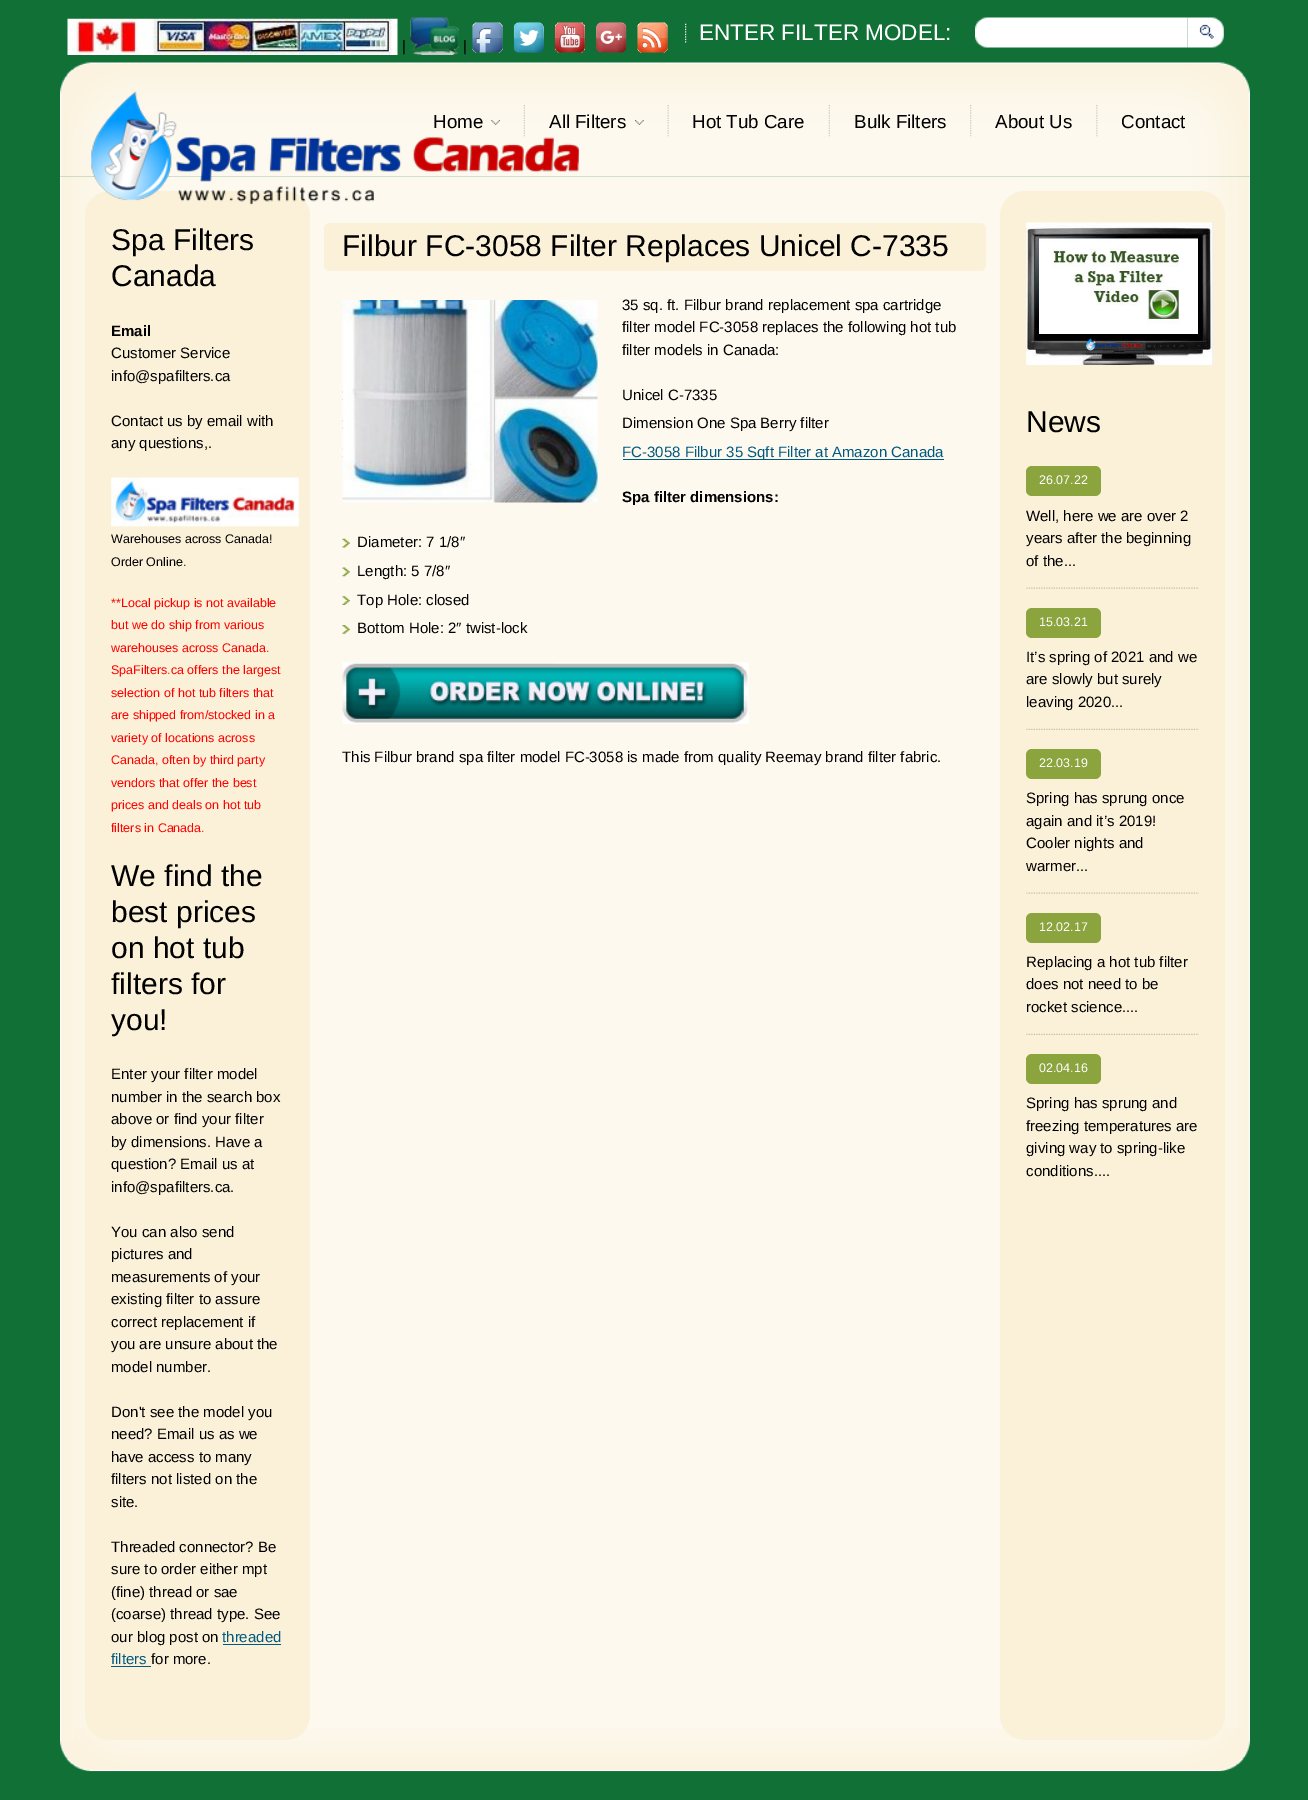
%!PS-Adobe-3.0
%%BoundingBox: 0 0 1308 1800
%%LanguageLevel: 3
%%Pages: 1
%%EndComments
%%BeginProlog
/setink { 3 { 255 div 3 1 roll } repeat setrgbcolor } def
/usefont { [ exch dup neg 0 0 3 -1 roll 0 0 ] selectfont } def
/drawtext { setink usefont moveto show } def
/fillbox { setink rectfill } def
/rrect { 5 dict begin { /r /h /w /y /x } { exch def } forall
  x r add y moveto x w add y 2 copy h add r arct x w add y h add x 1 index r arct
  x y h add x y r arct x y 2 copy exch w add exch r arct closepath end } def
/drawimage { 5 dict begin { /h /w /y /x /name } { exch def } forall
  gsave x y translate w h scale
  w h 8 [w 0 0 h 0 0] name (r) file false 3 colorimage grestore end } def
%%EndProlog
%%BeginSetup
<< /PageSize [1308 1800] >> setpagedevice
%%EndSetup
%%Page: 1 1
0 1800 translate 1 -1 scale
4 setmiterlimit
0 0 1308 1800 17 112 54 fillbox
(assets/img1.rgb) 60 62 1190 115 drawimage
(assets/img2.rgb) 472 22 31 31 drawimage
(assets/img3.rgb) 513 22 31 31 drawimage
(assets/img4.rgb) 555 22 30 31 drawimage
(assets/img5.rgb) 596 22 31 31 drawimage
(assets/img6.rgb) 637 22 31 31 drawimage
(assets/img7.rgb) 685 23 2 20 drawimage
(ENTER FILTER MODEL:) 699 40 /LiberationSans-Regular 22.5 255 255 255 drawtext
(assets/img8.rgb) 975 17 213 31 drawimage
(assets/img9.rgb) 1187 17 37 31 drawimage
(assets/img10.rgb) 67 18 331 37 drawimage
(|) 402 51 /LiberationSans-Regular 15 0 0 0 drawtext
(assets/img11.rgb) 410 17 49 38 drawimage
(|) 463 51 /LiberationSans-Regular 15 0 0 0 drawtext
(assets/img19.rgb) 60 176 1190 1564 drawimage
(assets/img20.rgb) 74 1728 1176 12 drawimage
251 241 216 setink
85 191 225 1549 25 rrect fill
(assets/img12.rgb) 91 91 489 114 drawimage
(Home) 433 128 /LiberationSans-Regular 18.75 0 0 0 drawtext
(assets/img13.rgb) 491 120 9 5 drawimage
(assets/img14.rgb) 523 105 2 32 drawimage
(All Filters) 549 128 /LiberationSans-Regular 18.75 0 0 0 drawtext
(assets/img15.rgb) 635 120 9 5 drawimage
(assets/img16.rgb) 667 105 2 32 drawimage
(Hot Tub Care) 692 128 /LiberationSans-Regular 18.75 0 0 0 drawtext
(assets/img14.rgb) 828 105 2 32 drawimage
(Bulk Filters) 854 128 /LiberationSans-Regular 18.75 0 0 0 drawtext
(assets/img17.rgb) 970 105 2 32 drawimage
(About Us) 995 128 /LiberationSans-Regular 18.75 0 0 0 drawtext
(assets/img18.rgb) 1096 105 2 32 drawimage
(Contact) 1121 128 /LiberationSans-Regular 18.75 0 0 0 drawtext
(Spa Filters) 111 250 /LiberationSans-Regular 30 0 0 0 drawtext
(Canada) 111 286 /LiberationSans-Regular 30 0 0 0 drawtext
(Email) 111 336 /LiberationSans-Bold 15 0 0 0 drawtext
(Customer Service) 111 358 /LiberationSans-Regular 15 0 0 0 drawtext
(info@spafilters.ca) 111 381 /LiberationSans-Regular 15 0 0 0 drawtext
(Contact us by email with) 111 426 /LiberationSans-Regular 15 0 0 0 drawtext
(any questions,.) 111 448 /LiberationSans-Regular 15 0 0 0 drawtext
(assets/img21.rgb) 111 477 188 50 drawimage
(Warehouses across Canada!) 111 543 /LiberationSans-Regular 12.5 0 0 0 drawtext
(Order Online.) 111 566 /LiberationSans-Regular 12.5 0 0 0 drawtext
(**Local pickup is not available) 111 607 /LiberationSans-Regular 12.5 255 0 0 drawtext
(but we do ship from various) 111 629 /LiberationSans-Regular 12.5 255 0 0 drawtext
(warehouses across Canada.) 111 652 /LiberationSans-Regular 12.5 255 0 0 drawtext
(SpaFilters.ca offers the largest) 111 674 /LiberationSans-Regular 12.5 255 0 0 drawtext
(selection of hot tub filters that) 111 697 /LiberationSans-Regular 12.5 255 0 0 drawtext
(are shipped from/stocked in a) 111 719 /LiberationSans-Regular 12.5 255 0 0 drawtext
(variety of locations across) 111 742 /LiberationSans-Regular 12.5 255 0 0 drawtext
(Canada, often by third party) 111 764 /LiberationSans-Regular 12.5 255 0 0 drawtext
(vendors that offer the best) 111 787 /LiberationSans-Regular 12.5 255 0 0 drawtext
(prices and deals on hot tub) 111 809 /LiberationSans-Regular 12.5 255 0 0 drawtext
(filters in Canada.) 111 832 /LiberationSans-Regular 12.5 255 0 0 drawtext
(We find the) 111 886 /LiberationSans-Regular 30 0 0 0 drawtext
(best prices) 111 922 /LiberationSans-Regular 30 0 0 0 drawtext
(on hot tub) 111 958 /LiberationSans-Regular 30 0 0 0 drawtext
(filters for) 111 994 /LiberationSans-Regular 30 0 0 0 drawtext
(you!) 111 1030 /LiberationSans-Regular 30 0 0 0 drawtext
(Enter your filter model) 111 1079 /LiberationSans-Regular 15 0 0 0 drawtext
(number in the search box) 111 1102 /LiberationSans-Regular 15 0 0 0 drawtext
(above or find your filter) 111 1124 /LiberationSans-Regular 15 0 0 0 drawtext
(by dimensions. Have a) 111 1147 /LiberationSans-Regular 15 0 0 0 drawtext
(question? Email us at) 111 1169 /LiberationSans-Regular 15 0 0 0 drawtext
(info@spafilters.ca.) 111 1192 /LiberationSans-Regular 15 0 0 0 drawtext
(You can also send) 111 1237 /LiberationSans-Regular 15 0 0 0 drawtext
(pictures and) 111 1259 /LiberationSans-Regular 15 0 0 0 drawtext
(measurements of your) 111 1282 /LiberationSans-Regular 15 0 0 0 drawtext
(existing filter to assure) 111 1304 /LiberationSans-Regular 15 0 0 0 drawtext
(correct replacement if) 111 1327 /LiberationSans-Regular 15 0 0 0 drawtext
(you are unsure about the) 111 1349 /LiberationSans-Regular 15 0 0 0 drawtext
(model number.) 111 1372 /LiberationSans-Regular 15 0 0 0 drawtext
(Don't see the model you) 111 1417 /LiberationSans-Regular 15 0 0 0 drawtext
(need? Email us as we) 111 1439 /LiberationSans-Regular 15 0 0 0 drawtext
(have access to many) 111 1462 /LiberationSans-Regular 15 0 0 0 drawtext
(filters not listed on the) 111 1484 /LiberationSans-Regular 15 0 0 0 drawtext
(site.) 111 1507 /LiberationSans-Regular 15 0 0 0 drawtext
(Threaded connector? Be) 111 1552 /LiberationSans-Regular 15 0 0 0 drawtext
(sure to order either mpt) 111 1574 /LiberationSans-Regular 15 0 0 0 drawtext
(\(fine\) thread or sae) 111 1597 /LiberationSans-Regular 15 0 0 0 drawtext
(\(coarse\) thread type. See) 111 1619 /LiberationSans-Regular 15 0 0 0 drawtext
(our blog post on) 111 1642 /LiberationSans-Regular 15 0 0 0 drawtext
(threaded) 222 1642 /LiberationSans-Regular 15 0 90 128 drawtext
223 1644 58 1 0 90 128 fillbox
(filters) 111 1664 /LiberationSans-Regular 15 0 90 128 drawtext
111 1666 40 1 0 90 128 fillbox
(for more.) 151 1664 /LiberationSans-Regular 15 0 0 0 drawtext
251 241 216 setink
324 223 662 48 6 rrect fill
(Filbur FC-3058 Filter Replaces Unicel C-7335) 342 256 /LiberationSans-Regular 30 0 0 0 drawtext
(35 sq. ft. Filbur brand replacement spa cartridge) 622 310 /LiberationSans-Regular 15 0 0 0 drawtext
(filter model FC-3058 replaces the following hot tub) 622 332 /LiberationSans-Regular 15 0 0 0 drawtext
(filter models in Canada:) 622 355 /LiberationSans-Regular 15 0 0 0 drawtext
(assets/img22.rgb) 342 391 1 9 drawimage
(Unicel C-7335) 622 400 /LiberationSans-Regular 15 0 0 0 drawtext
(assets/img23.rgb) 342 420 1 9 drawimage
(Dimension One Spa Berry filter) 622 428 /LiberationSans-Regular 15 0 0 0 drawtext
(assets/img24.rgb) 342 448 1 10 drawimage
623 459 321 1 0 90 128 fillbox
(FC-3058 Filbur 35 Sqft Filter at Amazon Canada) 622 457 /LiberationSans-Regular 15 0 90 128 drawtext
(Spa filter dimensions:) 622 502 /LiberationSans-Bold 15 0 0 0 drawtext
(assets/img25.rgb) 342 538 8 10 drawimage
(Diameter: 7 1/8″) 357 547 /LiberationSans-Regular 15 0 0 0 drawtext
(assets/img26.rgb) 342 567 8 10 drawimage
(Length: 5 7/8″) 357 576 /LiberationSans-Regular 15 0 0 0 drawtext
(assets/img27.rgb) 342 596 8 9 drawimage
(Top Hole: closed) 357 605 /LiberationSans-Regular 15 0 0 0 drawtext
(assets/img28.rgb) 342 625 8 9 drawimage
(Bottom Hole: 2″ twist-lock) 357 633 /LiberationSans-Regular 15 0 0 0 drawtext
(assets/img29.rgb) 342 662 407 62 drawimage
(This Filbur brand spa filter model FC-3058 is made from quality Reemay brand filter fabric.) 342 762 /LiberationSans-Regular 15 0 0 0 drawtext
(assets/img30.rgb) 342 300 256 203 drawimage
251 241 216 setink
1000 191 225 1549 25 rrect fill
(assets/img31.rgb) 1026 222 188 143 drawimage
(News) 1026 432 /LiberationSans-Regular 30 0 0 0 drawtext
139 164 62 setink
1026 466 75 30 6 rrect fill
(26.07.22) 1039 484 /LiberationSans-Regular 12.5 255 255 255 drawtext
(Well, here we are over 2) 1026 521 /LiberationSans-Regular 15 0 0 0 drawtext
(years after the beginning) 1026 543 /LiberationSans-Regular 15 0 0 0 drawtext
(of the...) 1026 566 /LiberationSans-Regular 15 0 0 0 drawtext
(assets/img32.rgb) 1026 587 173 2 drawimage
139 164 62 setink
1026 608 75 30 6 rrect fill
(15.03.21) 1039 626 /LiberationSans-Regular 12.5 255 255 255 drawtext
(It’s spring of 2021 and we) 1026 662 /LiberationSans-Regular 15 0 0 0 drawtext
(are slowly but surely) 1026 684 /LiberationSans-Regular 15 0 0 0 drawtext
(leaving 2020...) 1026 707 /LiberationSans-Regular 15 0 0 0 drawtext
(assets/img33.rgb) 1026 728 173 2 drawimage
139 164 62 setink
1026 749 75 30 6 rrect fill
(22.03.19) 1039 767 /LiberationSans-Regular 12.5 255 255 255 drawtext
(Spring has sprung once) 1026 803 /LiberationSans-Regular 15 0 0 0 drawtext
(again and it’s 2019!) 1026 826 /LiberationSans-Regular 15 0 0 0 drawtext
(Cooler nights and) 1026 848 /LiberationSans-Regular 15 0 0 0 drawtext
(warmer...) 1026 871 /LiberationSans-Regular 15 0 0 0 drawtext
(assets/img32.rgb) 1026 892 173 2 drawimage
139 164 62 setink
1026 913 75 30 6 rrect fill
(12.02.17) 1039 931 /LiberationSans-Regular 12.5 255 255 255 drawtext
(Replacing a hot tub filter) 1026 967 /LiberationSans-Regular 15 0 0 0 drawtext
(does not need to be) 1026 989 /LiberationSans-Regular 15 0 0 0 drawtext
(rocket science....) 1026 1012 /LiberationSans-Regular 15 0 0 0 drawtext
(assets/img33.rgb) 1026 1033 173 2 drawimage
139 164 62 setink
1026 1054 75 30 6 rrect fill
(02.04.16) 1039 1072 /LiberationSans-Regular 12.5 255 255 255 drawtext
(Spring has sprung and) 1026 1108 /LiberationSans-Regular 15 0 0 0 drawtext
(freezing temperatures are) 1026 1131 /LiberationSans-Regular 15 0 0 0 drawtext
(giving way to spring-like) 1026 1153 /LiberationSans-Regular 15 0 0 0 drawtext
(conditions....) 1026 1176 /LiberationSans-Regular 15 0 0 0 drawtext
(assets/img34.rgb) 60 1740 1190 32 drawimage
showpage
%%EOF
